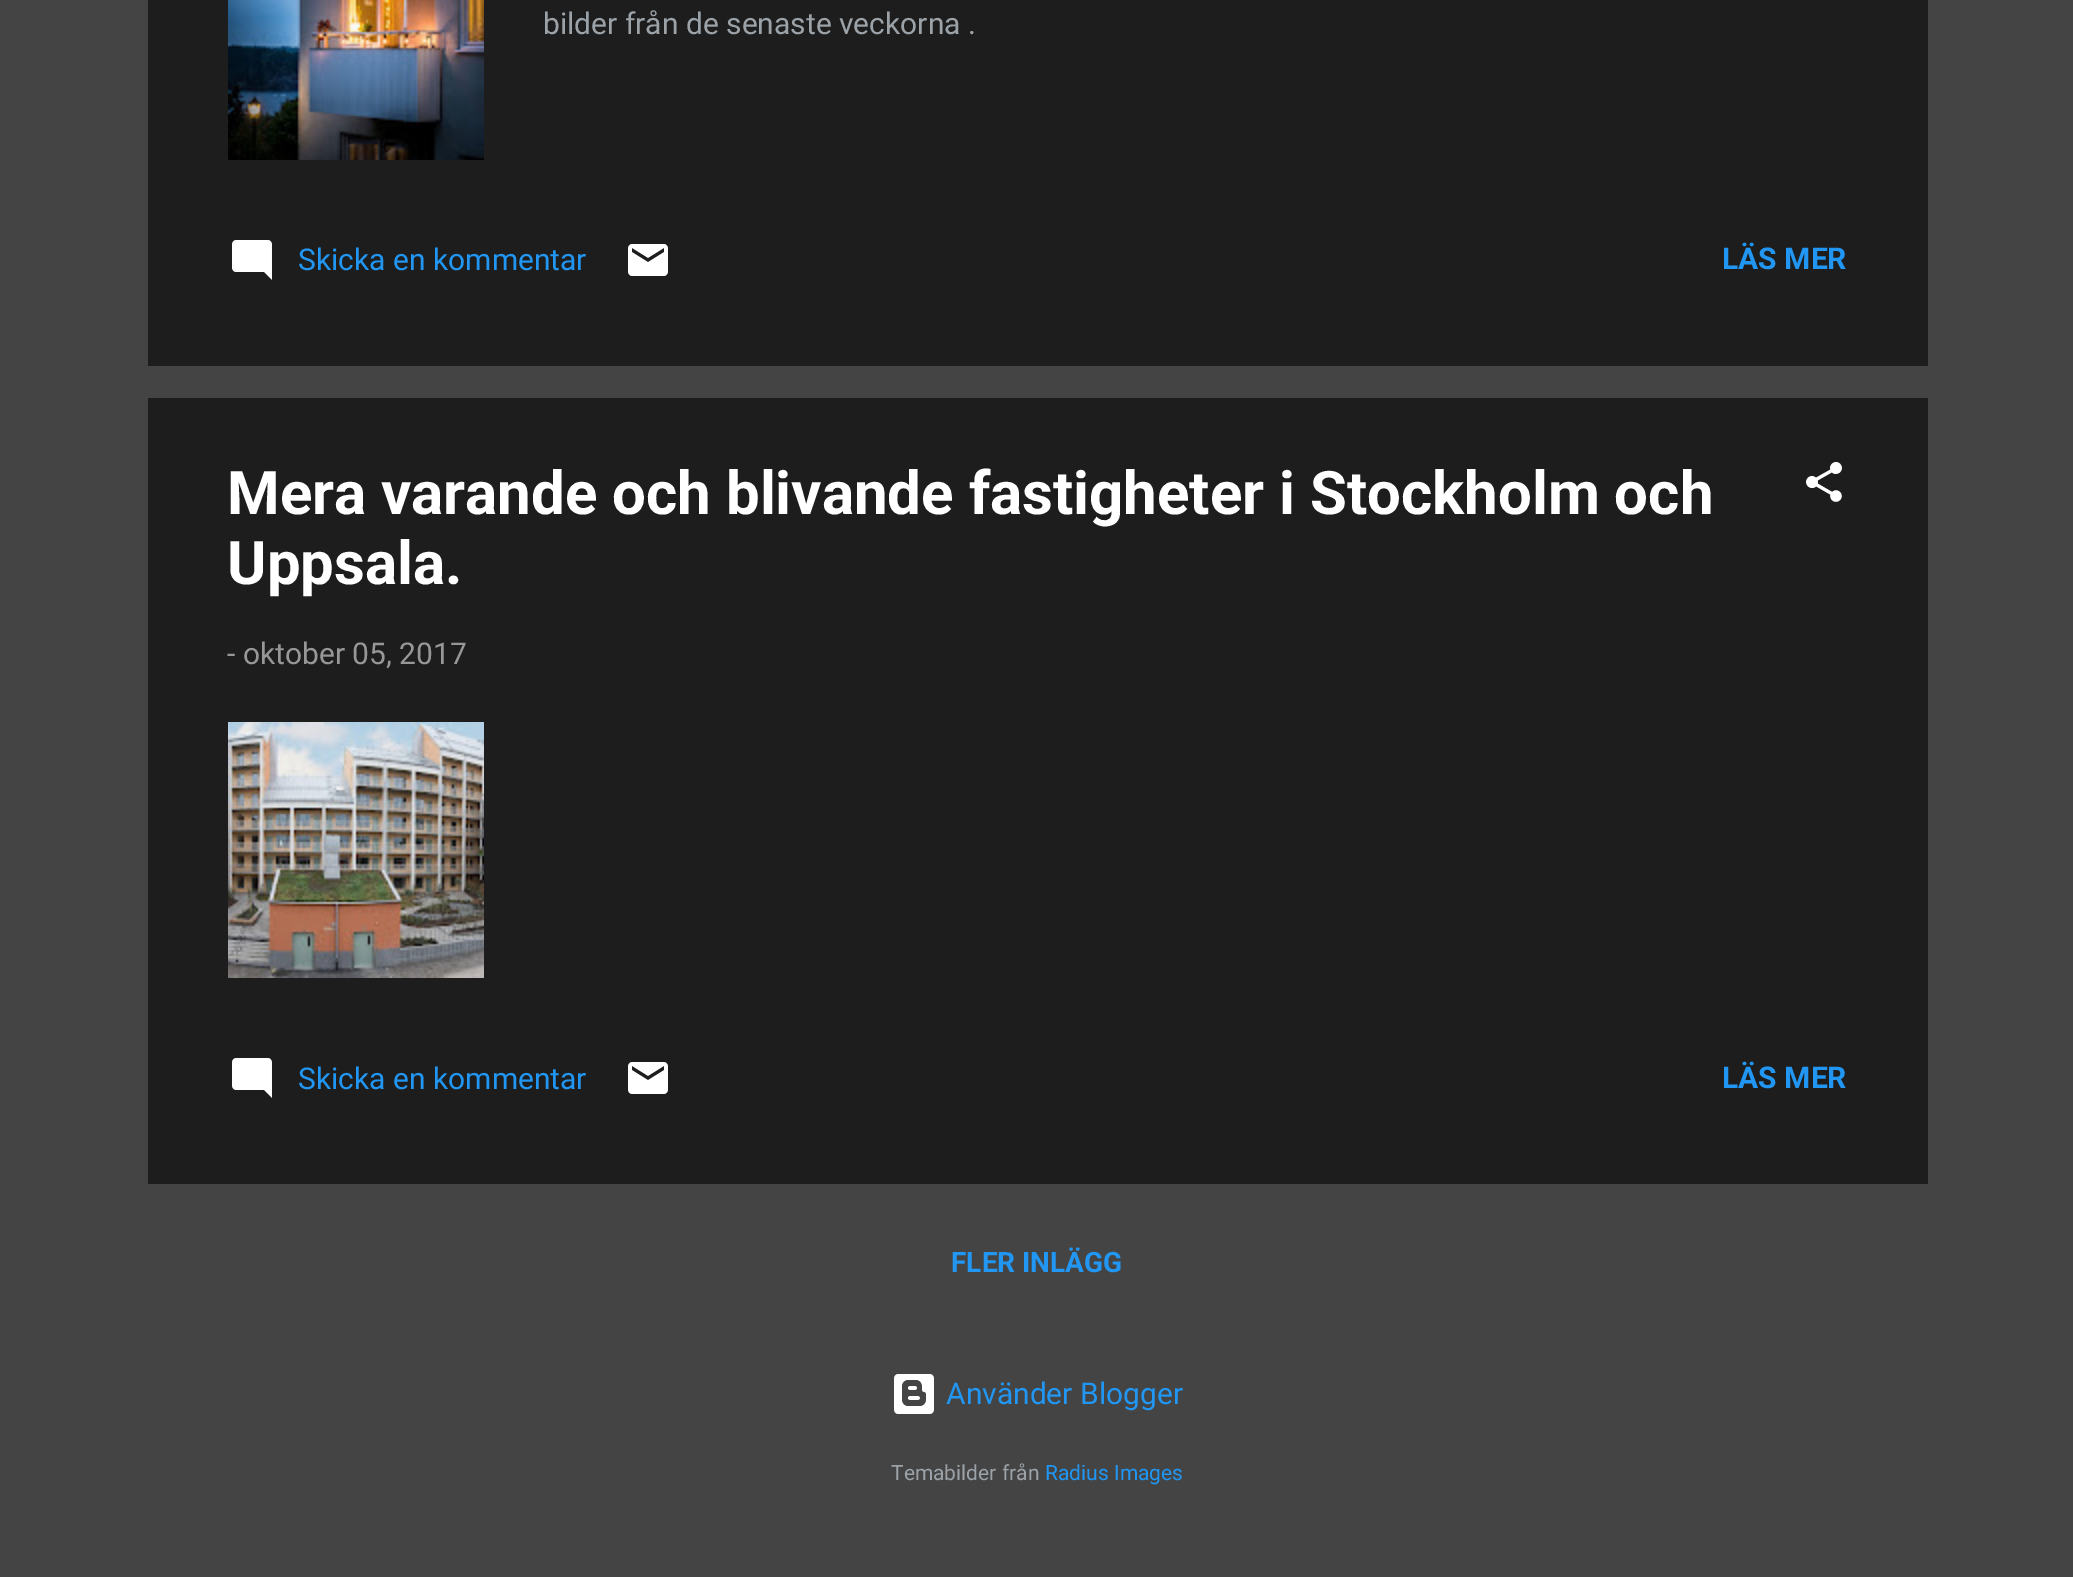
%!PS-Adobe-3.0
%%BoundingBox: 0 0 2073 1577
%%LanguageLevel: 3
%%Pages: 1
%%EndComments
%%BeginProlog
/setink { 3 { 255 div 3 1 roll } repeat setrgbcolor } def
/usefont { [ exch dup neg 0 0 3 -1 roll 0 0 ] selectfont } def
/drawtext { setink usefont moveto show } def
/fillbox { setink rectfill } def
/drawimage { 5 dict begin { /h /w /y /x /name } { exch def } forall
  gsave x y translate w h scale
  w h 8 [w 0 0 h 0 0] name (r) file false 3 colorimage grestore end } def
%%EndProlog
%%BeginSetup
<< /PageSize [2073 1577] >> setpagedevice
%%EndSetup
%%Page: 1 1
0 1577 translate 1 -1 scale
4 setmiterlimit
0 0 2073 1577 68 68 68 fillbox
148 0 1780 366 29 29 29 fillbox
(assets/img1.rgb) 228 0 256 160 drawimage
(bilder från de senaste veckorna .) 543 34 /Roboto-Regular 30 155 162 168 drawtext
(assets/img2.rgb) 232 240 40 40 drawimage
(Skicka en kommentar) 298 270 /Roboto-Regular 30 33 150 243 drawtext
(assets/img3.rgb) 628 244 40 32 drawimage
(LÄS MER) 1722 269 /Roboto-Bold 30 33 150 243 drawtext
148 398 1780 786 29 29 29 fillbox
(Mera varande och blivande fastigheter i Stockholm och) 227 514 /Roboto-Bold 60 255 255 255 drawtext
(Uppsala.) 227 584 /Roboto-Bold 60 255 255 255 drawtext
(assets/img4.rgb) 1806 462 36 40 drawimage
(- oktober 05, 2017) 227 664 /Roboto-Regular 30 151 151 151 drawtext
(assets/img5.rgb) 228 722 256 256 drawimage
(assets/img2.rgb) 232 1058 40 40 drawimage
(Skicka en kommentar) 298 1089 /Roboto-Regular 30 33 150 243 drawtext
(assets/img3.rgb) 628 1062 40 32 drawimage
(LÄS MER) 1722 1088 /Roboto-Bold 30 33 150 243 drawtext
(FLER INLÄGG) 951 1272 /Roboto-Bold 28 33 150 243 drawtext
(assets/img6.rgb) 894 1374 40 40 drawimage
(Använder Blogger) 946 1404 /Roboto-Regular 30 33 150 243 drawtext
(Temabilder från) 891 1480 /Roboto-Regular 21 155 162 168 drawtext
(Radius Images) 1045 1480 /Roboto-Regular 21 33 150 243 drawtext
showpage
%%EOF
